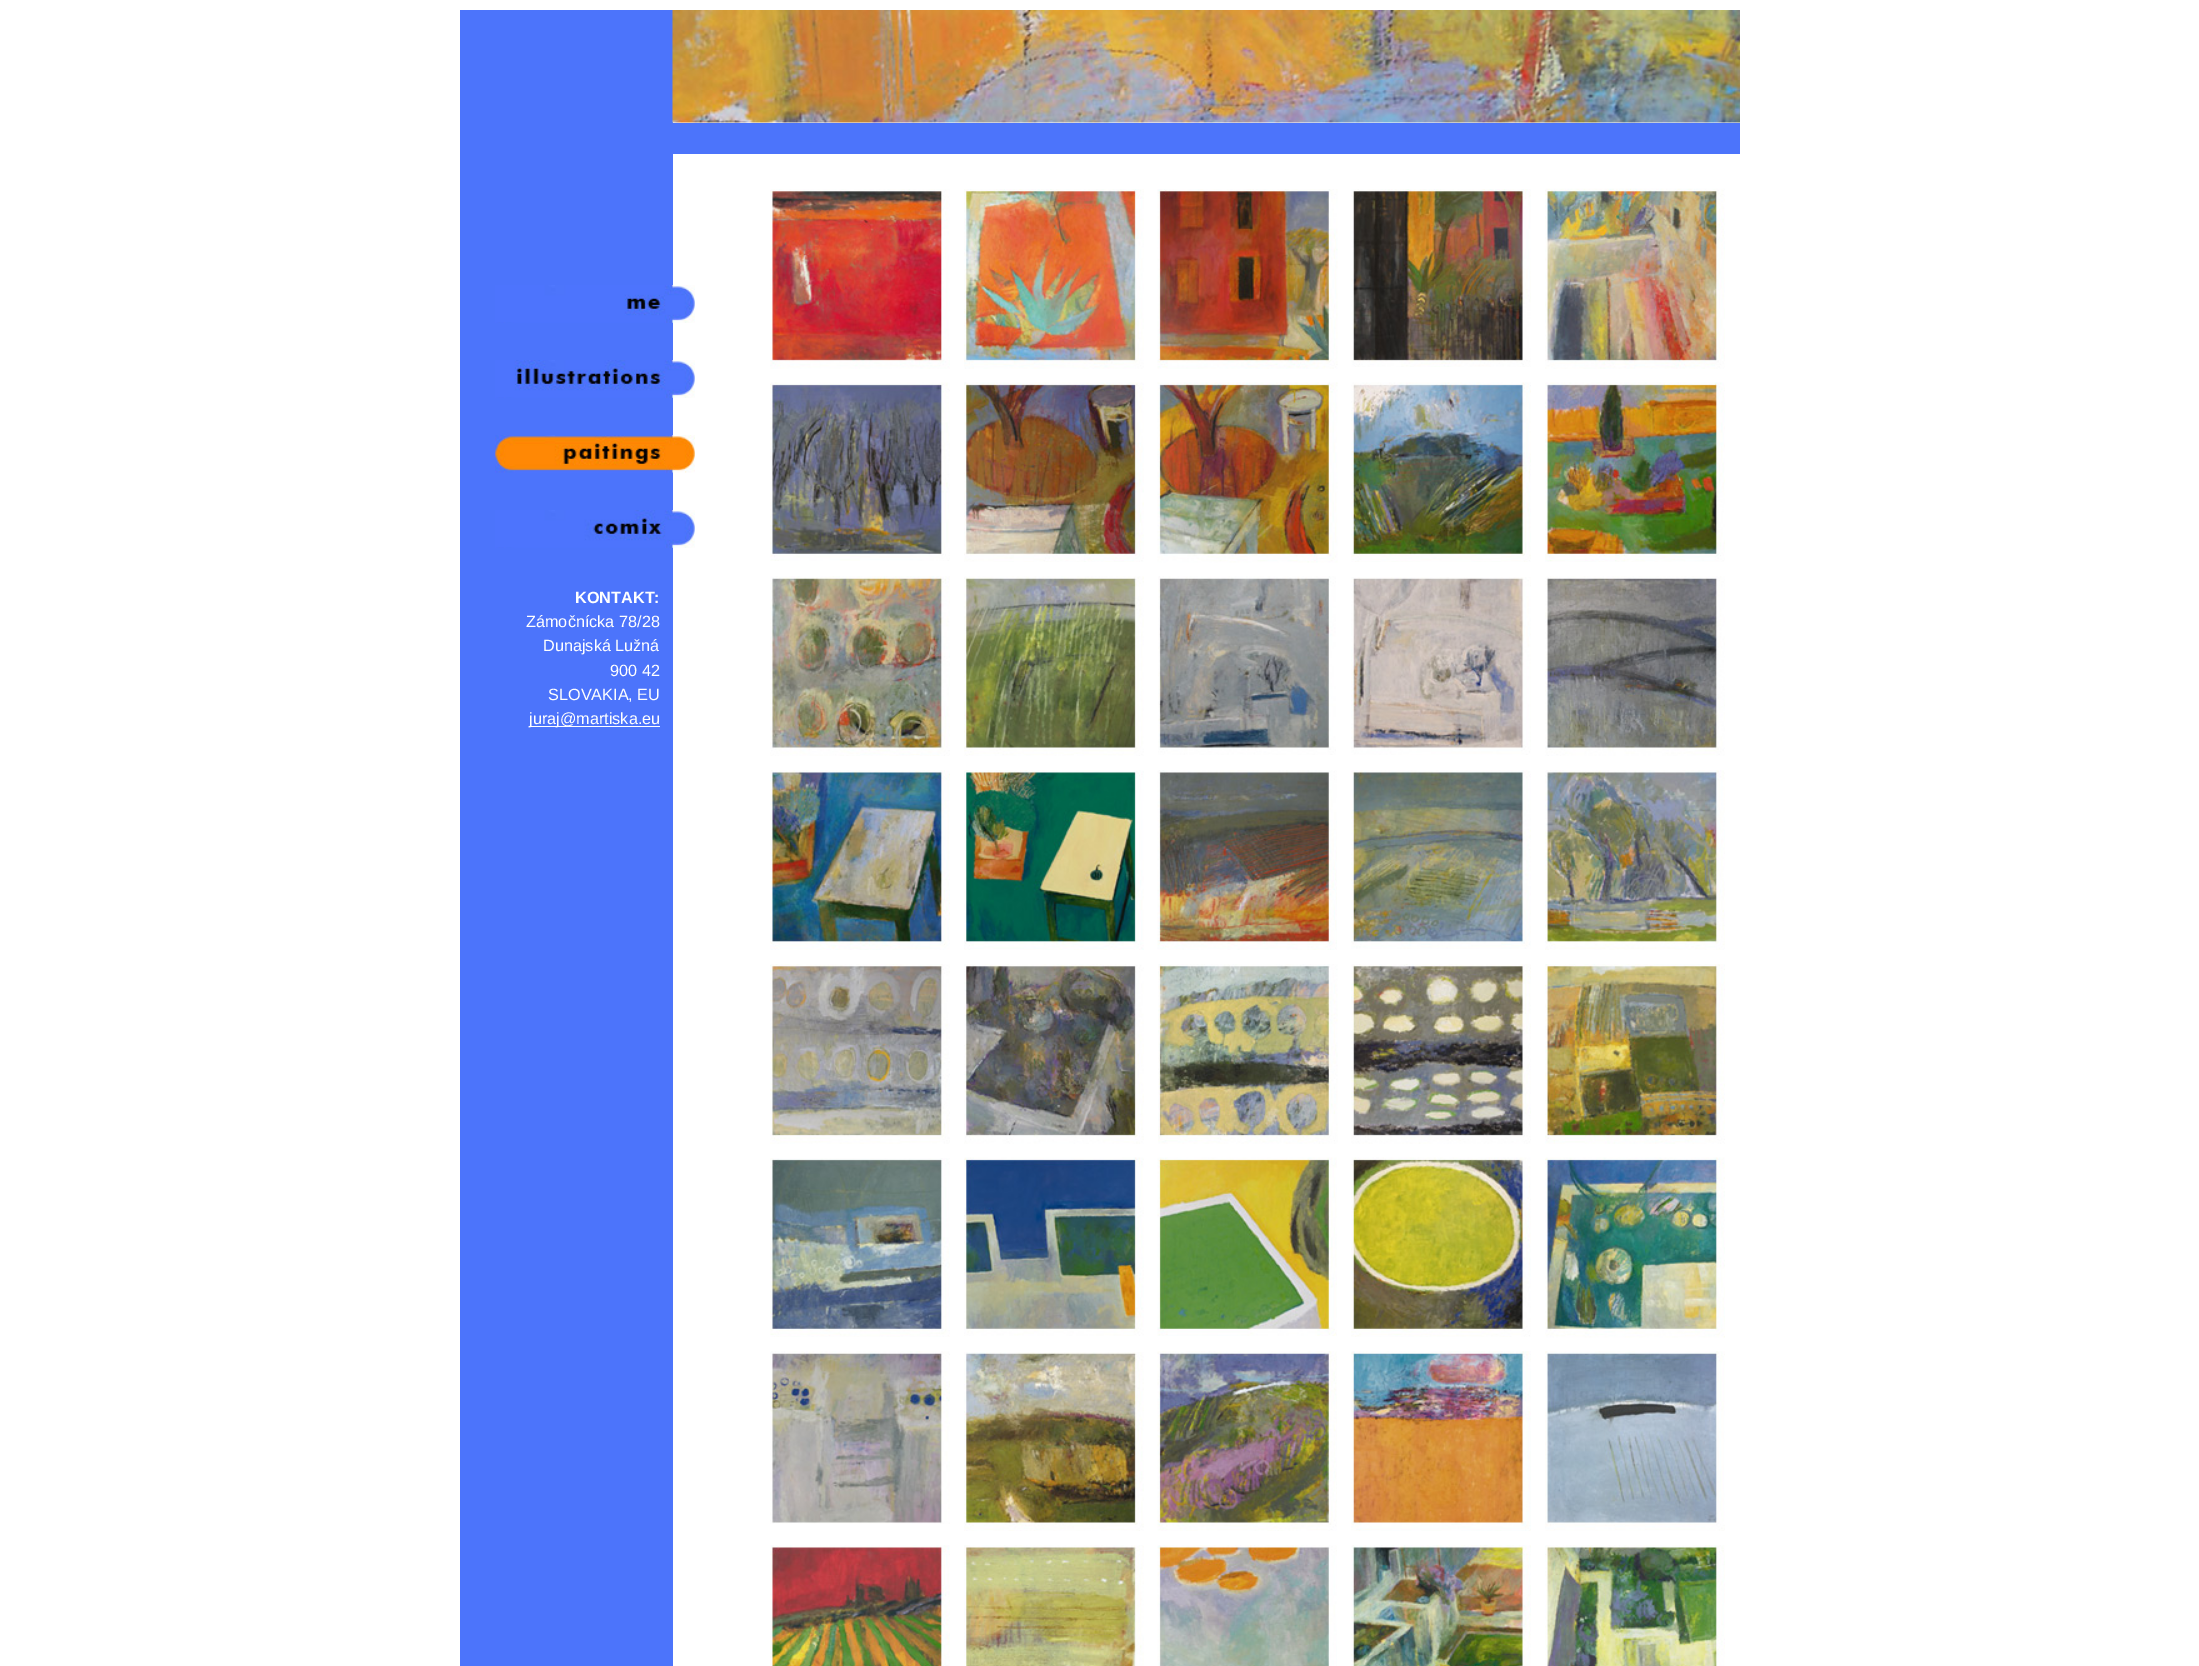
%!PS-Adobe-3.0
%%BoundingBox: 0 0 2199 1666
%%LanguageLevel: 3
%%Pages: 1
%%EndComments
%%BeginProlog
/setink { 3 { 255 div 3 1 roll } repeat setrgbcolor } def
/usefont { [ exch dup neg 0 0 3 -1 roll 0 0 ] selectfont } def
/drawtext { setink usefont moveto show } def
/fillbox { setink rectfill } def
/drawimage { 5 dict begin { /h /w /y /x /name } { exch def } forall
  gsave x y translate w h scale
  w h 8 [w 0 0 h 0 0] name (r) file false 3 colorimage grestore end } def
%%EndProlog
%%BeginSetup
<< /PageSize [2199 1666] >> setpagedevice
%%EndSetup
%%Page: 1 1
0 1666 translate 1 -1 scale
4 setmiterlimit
0 0 2199 1666 255 255 255 fillbox
460 10 213 1656 76 116 251 fillbox
(assets/img1.rgb) 672 10 1068 113 drawimage
673 123 1067 31 76 116 251 fillbox
(assets/img2.rgb) 495 322 200 1 drawimage
(assets/img3.rgb) 495 285 200 38 drawimage
(assets/img2.rgb) 495 397 200 1 drawimage
(assets/img4.rgb) 495 360 200 38 drawimage
(assets/img5.rgb) 495 435 200 38 drawimage
(assets/img2.rgb) 495 547 200 1 drawimage
(assets/img6.rgb) 495 510 200 38 drawimage
(KONTAKT:) 575 603 /LiberationSans-Bold 16.25 255 255 255 drawtext
(Zámočnícka 78/28) 526 627 /LiberationSans-Regular 16.25 255 255 255 drawtext
(Dunajská Lužná) 543 651 /LiberationSans-Regular 16.25 255 255 255 drawtext
(900 42) 610 676 /LiberationSans-Regular 16.25 255 255 255 drawtext
(SLOVAKIA, EU) 548 700 /LiberationSans-Regular 16.25 255 255 255 drawtext
529 726 131 1 255 255 255 fillbox
(juraj@martiska.eu) 529 724 /LiberationSans-Regular 16.25 255 255 255 drawtext
(assets/img7.rgb) 770 189 180 180 drawimage
(assets/img8.rgb) 964 189 180 180 drawimage
(assets/img9.rgb) 1157 189 181 180 drawimage
(assets/img10.rgb) 1351 189 180 178 drawimage
(assets/img11.rgb) 1545 188 180 181 drawimage
(assets/img12.rgb) 770 382 180 179 drawimage
(assets/img13.rgb) 964 382 180 180 drawimage
(assets/img14.rgb) 1157 382 181 181 drawimage
(assets/img15.rgb) 1351 382 180 180 drawimage
(assets/img16.rgb) 1545 382 180 180 drawimage
(assets/img17.rgb) 770 576 180 180 drawimage
(assets/img18.rgb) 964 576 180 180 drawimage
(assets/img19.rgb) 1158 576 178 179 drawimage
(assets/img20.rgb) 1351 577 180 178 drawimage
(assets/img21.rgb) 1545 576 180 180 drawimage
(assets/img22.rgb) 770 770 180 180 drawimage
(assets/img23.rgb) 964 770 180 180 drawimage
(assets/img24.rgb) 1157 770 180 180 drawimage
(assets/img25.rgb) 1351 770 180 179 drawimage
(assets/img26.rgb) 1545 770 180 180 drawimage
(assets/img27.rgb) 770 964 180 180 drawimage
(assets/img28.rgb) 964 964 180 180 drawimage
(assets/img29.rgb) 1158 964 180 180 drawimage
(assets/img30.rgb) 1351 964 180 180 drawimage
(assets/img31.rgb) 1545 964 180 180 drawimage
(assets/img32.rgb) 770 1158 180 179 drawimage
(assets/img33.rgb) 964 1157 180 179 drawimage
(assets/img34.rgb) 1157 1157 180 179 drawimage
(assets/img35.rgb) 1351 1157 180 180 drawimage
(assets/img36.rgb) 1545 1157 180 181 drawimage
(assets/img37.rgb) 770 1351 180 173 drawimage
(assets/img38.rgb) 964 1352 180 179 drawimage
(assets/img39.rgb) 1157 1351 180 180 drawimage
(assets/img40.rgb) 1351 1351 180 180 drawimage
(assets/img41.rgb) 1545 1351 180 180 drawimage
(assets/img42.rgb) 770 1545 180 121 drawimage
(assets/img43.rgb) 964 1545 180 121 drawimage
(assets/img44.rgb) 1157 1545 180 121 drawimage
(assets/img45.rgb) 1351 1545 180 121 drawimage
(assets/img46.rgb) 1545 1545 180 121 drawimage
showpage
%%EOF
